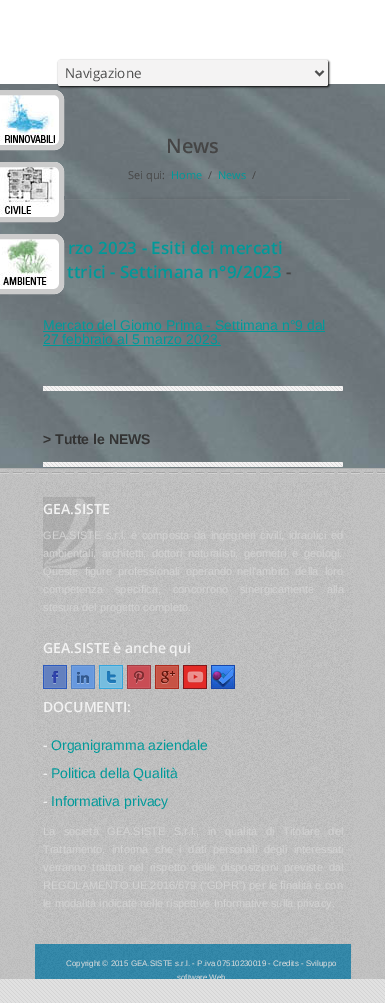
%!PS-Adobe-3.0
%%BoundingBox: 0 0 385 1003
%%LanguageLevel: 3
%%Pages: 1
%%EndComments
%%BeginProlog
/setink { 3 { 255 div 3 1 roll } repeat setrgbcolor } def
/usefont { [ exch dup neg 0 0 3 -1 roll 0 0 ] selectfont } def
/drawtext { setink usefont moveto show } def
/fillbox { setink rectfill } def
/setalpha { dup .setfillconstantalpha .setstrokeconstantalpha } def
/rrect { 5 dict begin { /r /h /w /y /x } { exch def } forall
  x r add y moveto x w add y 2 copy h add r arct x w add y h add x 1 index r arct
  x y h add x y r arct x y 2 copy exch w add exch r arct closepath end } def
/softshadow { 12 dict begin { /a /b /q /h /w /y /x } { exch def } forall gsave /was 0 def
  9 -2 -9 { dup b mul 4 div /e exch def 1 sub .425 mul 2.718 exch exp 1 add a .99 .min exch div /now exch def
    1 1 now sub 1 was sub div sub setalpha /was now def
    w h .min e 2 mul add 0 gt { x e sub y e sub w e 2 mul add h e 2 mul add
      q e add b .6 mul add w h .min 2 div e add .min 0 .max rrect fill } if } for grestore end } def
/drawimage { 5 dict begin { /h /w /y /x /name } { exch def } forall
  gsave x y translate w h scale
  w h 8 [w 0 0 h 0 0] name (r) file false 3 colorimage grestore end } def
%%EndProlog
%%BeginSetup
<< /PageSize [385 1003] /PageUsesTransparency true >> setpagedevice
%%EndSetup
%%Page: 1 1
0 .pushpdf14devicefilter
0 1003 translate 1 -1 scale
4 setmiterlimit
0 0 385 1003 225 225 225 fillbox
(assets/img1.rgb) 0 979 385 24 drawimage
(assets/img5.rgb) 0 84 385 384 drawimage
255 255 255 setink
-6 90 moveto 54 90 lineto 59.5 90 64 94.5 64 100 curveto 64 140 lineto 64 145.5 59.5 150 54 150 curveto -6 150 lineto closepath fill
(assets/img2.rgb) 0 95 55 48 drawimage
204 204 204 setink
5 setlinewidth
-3.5 92.5 moveto 54 92.5 lineto 58 92.5 61.5 96 61.5 100 curveto 61.5 140 lineto 61.5 144 58 147.5 54 147.5 curveto -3.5 147.5 lineto closepath stroke
255 255 255 setink
-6 162 moveto 54 162 lineto 59.5 162 64 166.5 64 172 curveto 64 212 lineto 64 217.5 59.5 222 54 222 curveto -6 222 lineto closepath fill
(assets/img3.rgb) 0 167 56 48 drawimage
204 204 204 setink
-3.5 164.5 moveto 54 164.5 lineto 58 164.5 61.5 168 61.5 172 curveto 61.5 212 lineto 61.5 216 58 219.5 54 219.5 curveto -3.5 219.5 lineto closepath stroke
255 255 255 setink
-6 234 moveto 54 234 lineto 59.5 234 64 238.5 64 244 curveto 64 284 lineto 64 289.5 59.5 294 54 294 curveto -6 294 lineto closepath fill
(assets/img4.rgb) 0 239 52 48 drawimage
204 204 204 setink
-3.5 236.5 moveto 54 236.5 lineto 58 236.5 61.5 240 61.5 244 curveto 61.5 284 lineto 61.5 288 58 291.5 54 291.5 curveto -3.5 291.5 lineto closepath stroke
0 0 385 84 255 255 255 fillbox
0 0 0 setink
59 61 270 26 2 1 1 softshadow
244 243 243 setink
58 60 270 26 2 rrect fill
78 78 78 setink
2 setlinewidth
315.5 71 moveto 319.5 75 lineto 323.5 71 lineto stroke
(Navigazione) 65 78 /OpenSans-Regular 13.5 78 78 78 drawtext
(News) 166 153 /OpenSans-SemiBold 20 69 69 69 drawtext
(Sei qui:) 128 179 /OpenSans-Regular 11 69 69 69 drawtext
(Home) 171 179 /OpenSans-Regular 11 0 153 153 drawtext
(/) 208 179 /OpenSans-Regular 11 69 69 69 drawtext
(News) 218 179 /OpenSans-Regular 11 0 153 153 drawtext
(/) 252 179 /OpenSans-Regular 11 69 69 69 drawtext
(assets/img6.rgb) 64 196 286 4 drawimage
(rzo 2023 - Esiti dei mercati) 68 254 /OpenSans-SemiBold 17 0 153 153 drawtext
(ttrici - Settimana n°9/2023) 67 278 /OpenSans-SemiBold 17 0 153 153 drawtext
(-) 286 278 /OpenSans-SemiBold 17 69 69 69 drawtext
(Mercato del Giorno Prima - Settimana n°9 dal) 43 330 /LiberationSans-Regular 14 0 153 153 drawtext
43 331 282 1 0 153 153 fillbox
(27 febbraio al 5 marzo 2023.) 43 344 /LiberationSans-Regular 14 0 153 153 drawtext
43 345 178 1 0 153 153 fillbox
(assets/img7.rgb) 43 386 300 5 drawimage
(> Tutte le NEWS) 43 444 /LiberationSans-Bold 14 51 51 51 drawtext
(assets/img7.rgb) 43 462 300 5 drawimage
0 469 385 510 193 193 193 fillbox
(assets/img8.rgb) 0 469 385 510 drawimage
0 468 385 1 176 176 176 fillbox
(assets/img9.rgb) 0 472 385 2 drawimage
(assets/img10.rgb) 33 482 320 497 drawimage
(assets/img11.rgb) 43 497 52 72 drawimage
(GEA.SISTE) 43 514 /OpenSans-SemiBold 14 242 242 242 drawtext
/LiberationSans-Regular 11 usefont
211 211 211 setink
43 539 moveto 1.5 0 32 (GEA.SISTE s.r.l. è composta da ingegneri civili, idraulici ed) widthshow
43 557 moveto 2.5 0 32 (ambientali, architetti,) widthshow
152 557 moveto 2.5 0 32 (dottori naturalisti, geometri e geologi.) widthshow
43 575 moveto 3 0 32 (Queste figure professionali operando) widthshow
237 575 moveto 3 0 32 (nell'ambito della loro) widthshow
43 593 moveto 9 0 32 (competenza specifica, concorrono sinergicamente alla) widthshow
(stesura del progetto completo.) 43 611 /LiberationSans-Regular 11 211 211 211 drawtext
(GEA.SISTE è anche qui) 43 653 /OpenSans-SemiBold 14 242 242 242 drawtext
(assets/img12.rgb) 43 665 24 24 drawimage
(assets/img13.rgb) 71 665 24 24 drawimage
(assets/img14.rgb) 99 665 24 24 drawimage
(assets/img15.rgb) 127 665 24 24 drawimage
(assets/img16.rgb) 155 665 24 24 drawimage
(assets/img17.rgb) 183 665 24 24 drawimage
(assets/img18.rgb) 211 665 24 24 drawimage
(DOCUMENTI:) 43 712 /OpenSans-SemiBold 14 242 242 242 drawtext
(-) 43 750 /LiberationSans-Regular 14 255 255 255 drawtext
(Organigramma aziendale) 51 750 /LiberationSans-Regular 14 0 153 153 drawtext
(-) 43 778 /LiberationSans-Regular 14 255 255 255 drawtext
(Politica della Qualità) 51 778 /LiberationSans-Regular 14 0 153 153 drawtext
(-) 43 806 /LiberationSans-Regular 14 255 255 255 drawtext
(Informativa privacy) 51 806 /LiberationSans-Regular 14 0 153 153 drawtext
/LiberationSans-Regular 11 usefont
211 211 211 setink
43 835 moveto 5.5 0 32 (La società GEA.SISTE S.r.l., in qualità di Titolare del) widthshow
43 853 moveto 3.5 0 32 (Trattamento, informa che i dati personali degli interessati) widthshow
43 871 moveto 3 0 32 (verranno trattati nel rispetto delle disposizioni previste dal) widthshow
43 889 moveto 0.25 0 32 (REGOLAMENTO UE 2016/679 \(“GDPR”\) per le finalità e con) widthshow
(le modalità indicate nelle rispettive Informative sulla privacy.) 43 907 /LiberationSans-Regular 11 211 211 211 drawtext
35 944 316 35 47 134 168 fillbox
(assets/img19.rgb) 35 944 316 35 drawimage
(Copyright © 2015 GEA.SISTE s.r.l. - P.iva 07510230019 - Credits - Sviluppo) 66 966 /LiberationSans-Regular 8 221 221 221 drawtext
(software Web) 177 980 /LiberationSans-Regular 8 221 221 221 drawtext
.poppdf14devicefilter showpage
%%EOF
